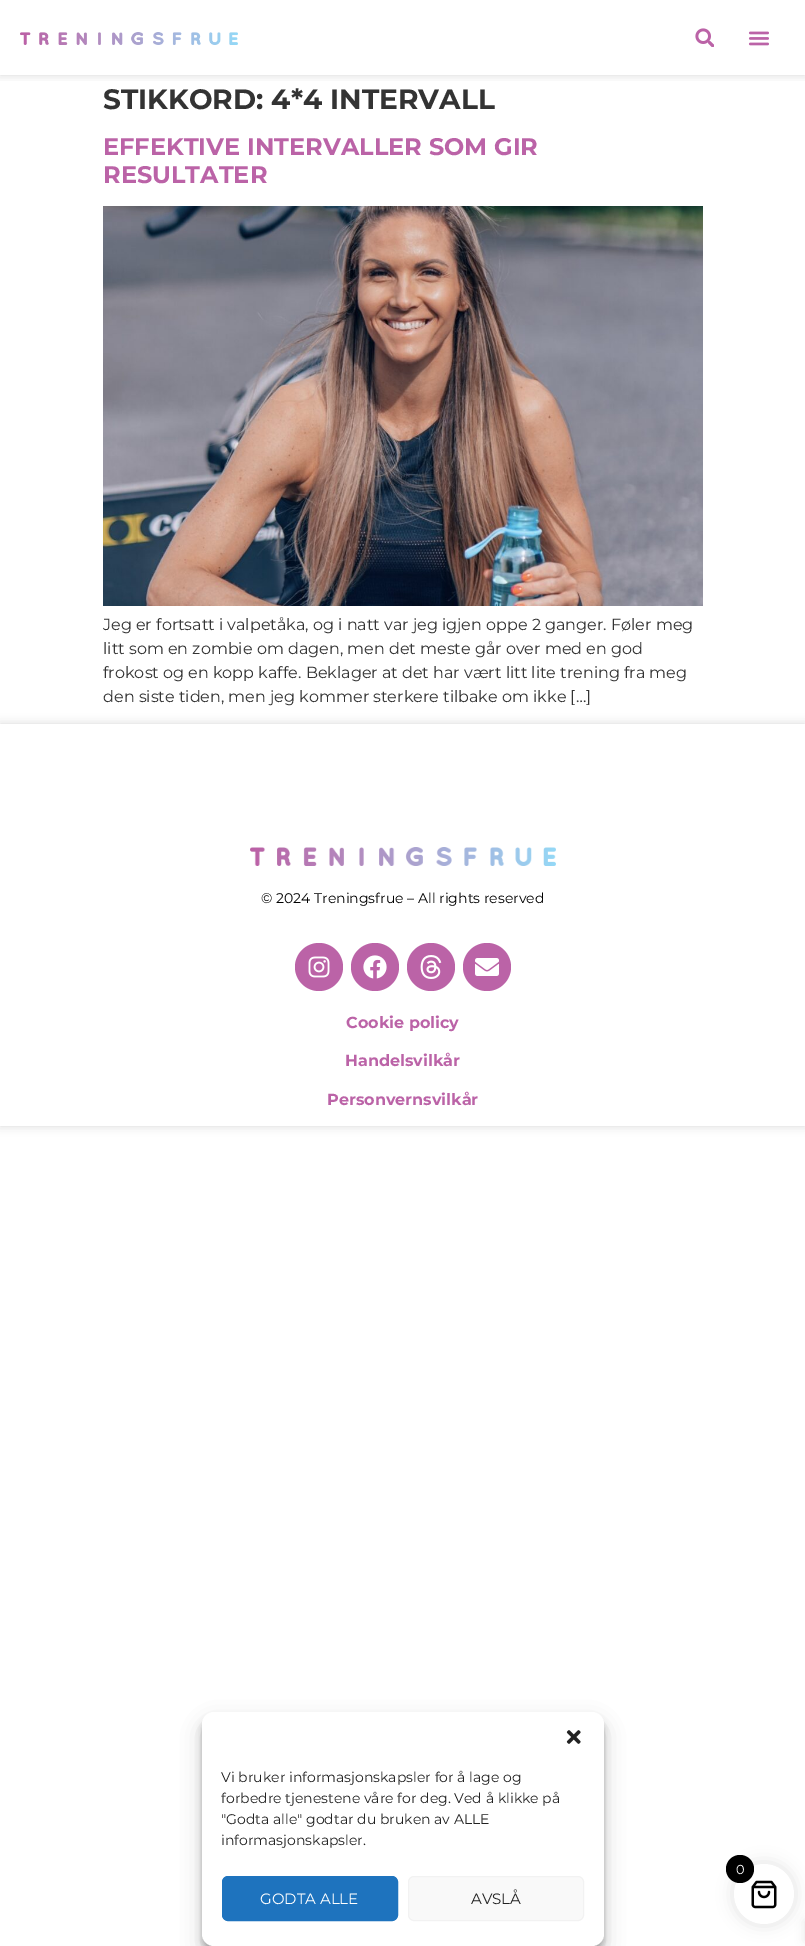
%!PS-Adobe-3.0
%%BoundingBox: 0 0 805 1946
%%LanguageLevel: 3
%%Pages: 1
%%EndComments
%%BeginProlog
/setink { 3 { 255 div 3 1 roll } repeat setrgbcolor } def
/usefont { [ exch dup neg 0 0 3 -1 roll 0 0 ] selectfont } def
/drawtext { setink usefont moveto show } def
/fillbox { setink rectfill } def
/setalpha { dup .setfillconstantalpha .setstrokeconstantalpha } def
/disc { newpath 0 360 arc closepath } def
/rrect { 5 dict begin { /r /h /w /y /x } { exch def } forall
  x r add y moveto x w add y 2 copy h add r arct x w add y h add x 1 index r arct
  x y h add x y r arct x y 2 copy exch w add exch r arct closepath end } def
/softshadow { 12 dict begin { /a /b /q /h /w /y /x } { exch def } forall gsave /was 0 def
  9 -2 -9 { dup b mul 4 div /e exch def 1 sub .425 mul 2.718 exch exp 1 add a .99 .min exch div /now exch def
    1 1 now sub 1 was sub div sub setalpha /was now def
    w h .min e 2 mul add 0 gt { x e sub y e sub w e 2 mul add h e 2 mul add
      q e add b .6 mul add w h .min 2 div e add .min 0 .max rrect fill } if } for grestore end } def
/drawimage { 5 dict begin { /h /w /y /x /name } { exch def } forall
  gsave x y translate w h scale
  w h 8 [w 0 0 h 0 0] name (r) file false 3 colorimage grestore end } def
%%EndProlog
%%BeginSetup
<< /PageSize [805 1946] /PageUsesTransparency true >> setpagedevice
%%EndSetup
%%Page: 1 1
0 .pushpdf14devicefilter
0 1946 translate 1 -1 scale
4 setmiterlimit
0 0 805 1946 255 255 255 fillbox
gsave
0 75 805 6 rectclip
0 0 0 setink
0 0 805 75 0 5 0.15 softshadow
grestore
(assets/img1.rgb) 20 32 218 13 drawimage
(assets/img2.rgb) 695 28 19 19 drawimage
(assets/img3.rgb) 748 31 21 15 drawimage
(STIKKORD: 4*4 INTERVALL) 103 109 /Montserrat-Bold 28 51 51 51 drawtext
(EFFEKTIVE INTERVALLER SOM GIR) 103 155 /Montserrat-Bold 24 187 99 167 drawtext
(RESULTATER) 103 183 /Montserrat-Bold 24 187 99 167 drawtext
(assets/img4.rgb) 103 206 600 400 drawimage
(Jeg er fortsatt i valpetåka, og i natt var jeg igjen oppe 2 ganger. Føler meg) 103 630 /Montserrat-Regular 16 51 51 51 drawtext
(litt som en zombie om dagen, men det meste går over med en god) 103 654 /Montserrat-Regular 16 51 51 51 drawtext
(frokost og en kopp kaffe. Beklager at det har vært litt lite trening fra meg) 103 678 /Montserrat-Regular 16 51 51 51 drawtext
(den siste tiden, men jeg kommer sterkere tilbake om ikke […]) 103 702 /Montserrat-Regular 16 51 51 51 drawtext
gsave
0 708 moveto 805 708 lineto 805 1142 lineto 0 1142 lineto closepath 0 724 moveto 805 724 lineto 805 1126 lineto 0 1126 lineto closepath eoclip newpath
0 0 0 setink
0 724 805 402 0 5 0.15 softshadow
grestore
(assets/img5.rgb) 250 847 306 19 drawimage
(© 2024 Treningsfrue – All rights reserved) 261 903 /Montserrat-Regular 14 0 0 0 drawtext
187 99 167 setink
319 967 24 disc fill
(assets/img6.rgb) 308 956 22 22 drawimage
375 967 24 disc fill
(assets/img7.rgb) 363 955 24 24 drawimage
431 967 24 disc fill
(assets/img8.rgb) 420 955 22 24 drawimage
487 967 24 disc fill
(assets/img9.rgb) 475 958 24 18 drawimage
(Cookie policy) 346 1028 /Montserrat-Bold 16 187 99 167 drawtext
(Handelsvilkår) 345 1066 /Montserrat-Bold 16 187 99 167 drawtext
(Personvernsvilkår) 327 1105 /Montserrat-Bold 16 187 99 167 drawtext
0 0 0 setink
202 1718 402 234 12 3 0.23 softshadow
202 1722 402 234 12 10 0.19 softshadow
255 255 255 setink
202 1712 402 234 12 rrect fill
(assets/img10.rgb) 566 1730 15 14 drawimage
(Vi bruker informasjonskapsler for å lage og) 221 1782 /Montserrat-Regular 14 34 34 34 drawtext
(forbedre tjenestene våre for deg. Ved å klikke på) 221 1803 /Montserrat-Regular 14 34 34 34 drawtext
("Godta alle" godtar du bruken av ALLE) 221 1824 /Montserrat-Regular 14 34 34 34 drawtext
(informasjonskapsler.) 221 1845 /Montserrat-Regular 14 34 34 34 drawtext
30 115 190 setink
222.5 1876.5 175 44 5.5 rrect gsave fill grestore
stroke
(GODTA ALLE) 260 1904 /Montserrat-Regular 15 255 255 255 drawtext
249 249 249 setink
408.5 1876.5 175 44 5.5 rrect gsave fill grestore
242 242 242 setink
stroke
(AVSLÅ) 471 1904 /Montserrat-Regular 15 34 34 34 drawtext
0 0 0 setink
732 1862 64 64 32 7.5 0.1 softshadow
805 1921 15 20 0 5 0.1 softshadow
255 255 255 setink
764 1894 30 disc fill
(assets/img11.rgb) 751 1880 26 29 drawimage
0 0 0 setink
740 1869 14 disc fill
(0) 736 1874 /Montserrat-Regular 13 255 255 255 drawtext
.poppdf14devicefilter showpage
%%EOF
